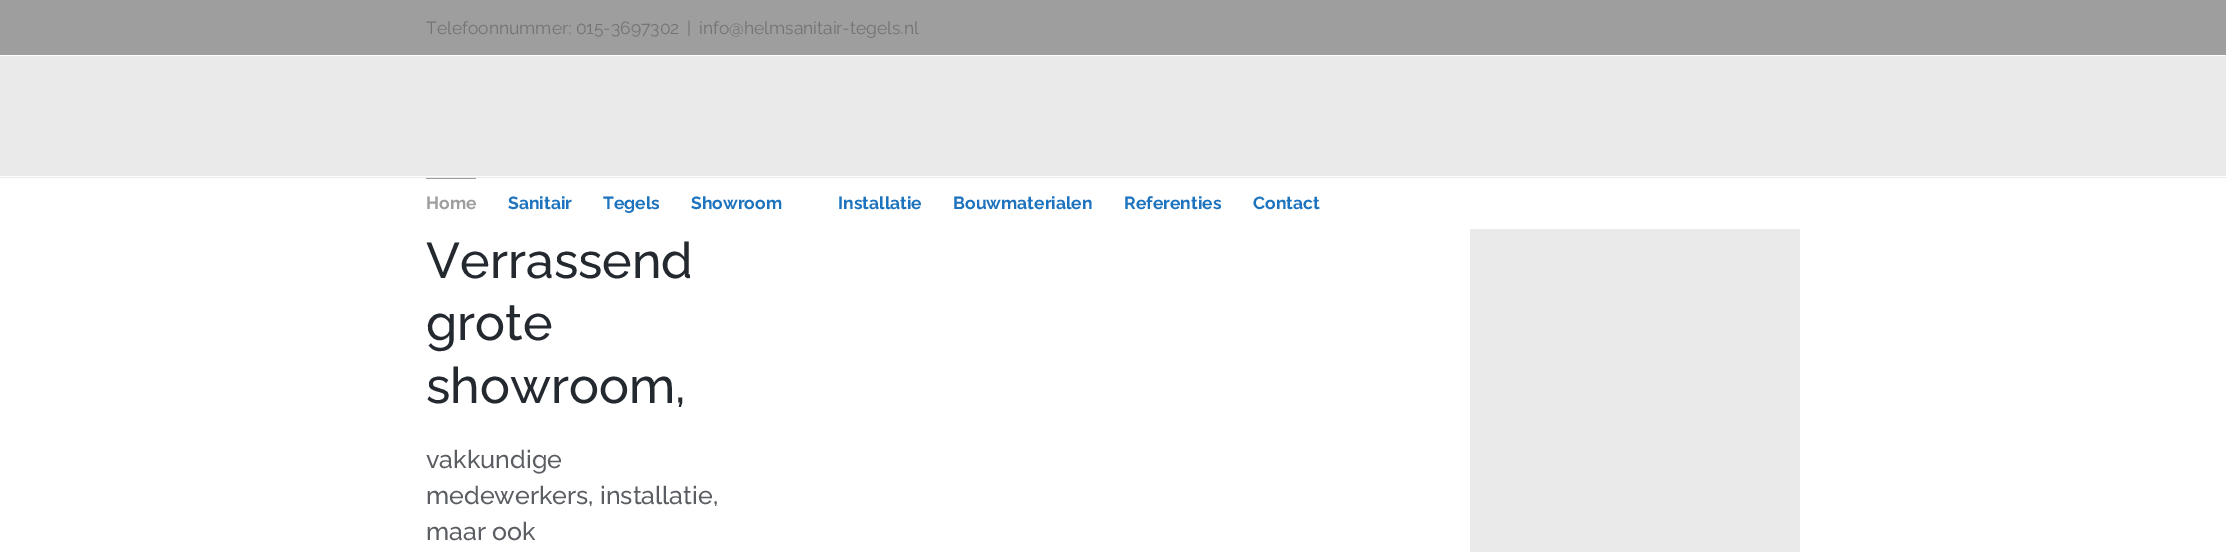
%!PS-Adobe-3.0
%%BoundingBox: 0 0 2226 552
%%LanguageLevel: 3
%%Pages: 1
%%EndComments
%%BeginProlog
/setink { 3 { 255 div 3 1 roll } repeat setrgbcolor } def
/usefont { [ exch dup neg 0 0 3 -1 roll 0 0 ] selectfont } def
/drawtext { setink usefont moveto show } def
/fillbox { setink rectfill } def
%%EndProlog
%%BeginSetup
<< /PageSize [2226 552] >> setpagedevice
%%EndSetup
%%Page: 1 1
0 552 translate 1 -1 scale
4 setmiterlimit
0 0 2226 552 255 255 255 fillbox
0 0 2226 55 158 158 158 fillbox
(Telefoonnummer: 015-3697302) 426 34 /Raleway-Regular 17.5 116 116 116 drawtext
(|) 687 34 /Raleway-Regular 17.5 116 116 116 drawtext
(info@helmsanitair-tegels.nl) 699 34 /Raleway-Regular 17.5 116 116 116 drawtext
0 56 2226 122 235 234 234 fillbox
0 176 2226 1 255 255 255 fillbox
426 178 50 1 158 158 158 fillbox
(Home) 426 209 /Raleway-Bold 17.5 158 158 158 drawtext
(Sanitair) 508 209 /Raleway-Bold 17.5 30 115 190 drawtext
(Tegels) 603 209 /Raleway-Bold 17.5 30 115 190 drawtext
(Showroom) 691 209 /Raleway-Bold 17.5 30 115 190 drawtext
(Installatie) 838 209 /Raleway-Bold 17.5 30 115 190 drawtext
(Bouwmaterialen) 953 209 /Raleway-Bold 17.5 30 115 190 drawtext
(Referenties) 1124 209 /Raleway-Bold 17.5 30 115 190 drawtext
(Contact) 1253 209 /Raleway-Bold 17.5 30 115 190 drawtext
(Verrassend) 426 278 /Raleway-Medium 50 36 41 48 drawtext
(grote) 426 340 /Raleway-Medium 50 36 41 48 drawtext
(showroom,) 426 403 /Raleway-Medium 50 36 41 48 drawtext
(vakkundige) 426 468 /Raleway-Medium 25 90 93 98 drawtext
(medewerkers, installatie,) 426 504 /Raleway-Medium 25 90 93 98 drawtext
(maar ook) 426 540 /Raleway-Medium 25 90 93 98 drawtext
1470 229 330 323 235 234 234 fillbox
showpage
%%EOF
